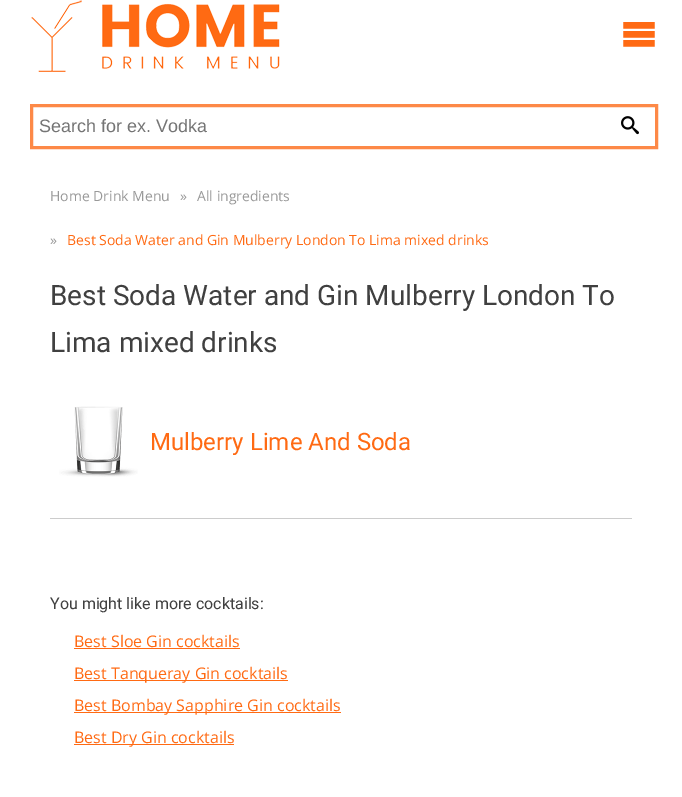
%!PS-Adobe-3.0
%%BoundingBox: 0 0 682 797
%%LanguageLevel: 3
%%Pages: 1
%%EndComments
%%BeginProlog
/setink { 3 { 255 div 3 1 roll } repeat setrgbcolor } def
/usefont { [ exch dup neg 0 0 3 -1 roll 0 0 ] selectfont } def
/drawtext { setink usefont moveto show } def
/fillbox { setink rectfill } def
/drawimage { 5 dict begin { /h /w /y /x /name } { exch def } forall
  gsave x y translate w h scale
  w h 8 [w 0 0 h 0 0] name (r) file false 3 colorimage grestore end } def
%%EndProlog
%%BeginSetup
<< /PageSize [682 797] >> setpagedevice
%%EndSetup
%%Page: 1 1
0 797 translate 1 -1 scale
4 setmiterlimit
0 0 682 797 255 255 255 fillbox
(assets/img1.rgb) 31 0 249 72 drawimage
(assets/img2.rgb) 623 22 32 25 drawimage
253 137 71 setink
3 setlinewidth
31.5 105.5 625 42 rectstroke
(Search for ex. Vodka) 39 132 /LiberationSans-Regular 18 117 117 117 drawtext
(assets/img3.rgb) 621 116 18 19 drawimage
(Home Drink Menu) 50 201 /OpenSans-Regular 14 153 153 153 drawtext
(») 180 201 /OpenSans-Regular 14 153 153 153 drawtext
(All ingredients) 197 201 /OpenSans-Regular 14 153 153 153 drawtext
(») 50 245 /OpenSans-Regular 14 153 153 153 drawtext
(Best Soda Water and Gin Mulberry London To Lima mixed drinks) 67 245 /OpenSans-Regular 14 255 106 19 drawtext
(Best Soda Water and Gin Mulberry London To) 50 305 /Roboto-Regular 28 64 64 64 drawtext
(Lima mixed drinks) 50 352 /Roboto-Regular 28 64 64 64 drawtext
50 518 582 1 204 204 204 fillbox
(assets/img4.rgb) 59 406 79 71 drawimage
(Mulberry Lime And Soda) 150 450 /Roboto-Regular 24 255 106 19 drawtext
(You might like more cocktails:) 50 609 /Roboto-Regular 16 64 64 64 drawtext
(Best Sloe Gin cocktails) 74 647 /OpenSans-Regular 16 255 106 19 drawtext
74 648 166 1 255 106 19 fillbox
74 680 214 1 255 106 19 fillbox
(Best Tanqueray Gin cocktails) 74 679 /OpenSans-Regular 16 255 106 19 drawtext
74 712 267 1 255 106 19 fillbox
(Best Bombay Sapphire Gin cocktails) 74 711 /OpenSans-Regular 16 255 106 19 drawtext
74 744 160 1 255 106 19 fillbox
(Best Dry Gin cocktails) 74 743 /OpenSans-Regular 16 255 106 19 drawtext
showpage
%%EOF
